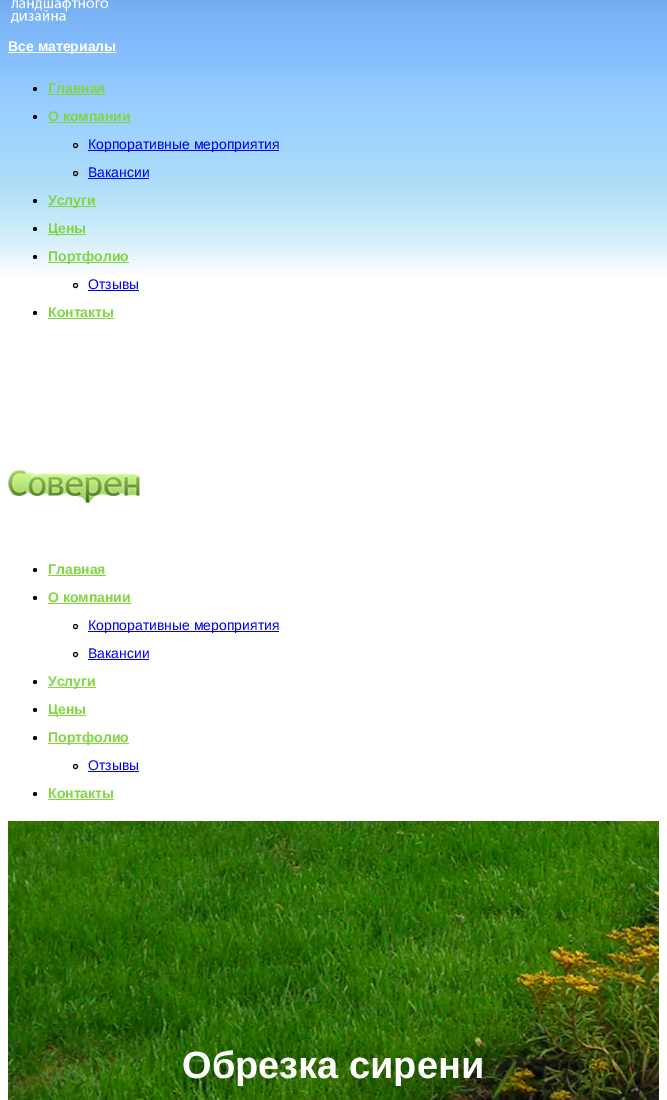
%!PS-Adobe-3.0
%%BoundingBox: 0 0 667 1100
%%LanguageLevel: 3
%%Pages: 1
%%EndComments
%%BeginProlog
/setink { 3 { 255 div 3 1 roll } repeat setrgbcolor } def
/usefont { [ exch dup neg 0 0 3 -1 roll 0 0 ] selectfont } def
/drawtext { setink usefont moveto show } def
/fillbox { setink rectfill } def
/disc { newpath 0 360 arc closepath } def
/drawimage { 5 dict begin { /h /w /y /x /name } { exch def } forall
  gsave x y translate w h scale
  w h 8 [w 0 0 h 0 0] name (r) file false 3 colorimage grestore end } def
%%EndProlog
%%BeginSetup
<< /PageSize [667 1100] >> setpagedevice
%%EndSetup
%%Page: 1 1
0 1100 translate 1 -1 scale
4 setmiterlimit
0 0 667 1100 255 255 255 fillbox
(assets/img1.rgb) 0 0 667 274 drawimage
(assets/img2.rgb) 11 0 98 23 drawimage
8 52 108 1 255 255 255 fillbox
(Все материалы) 8 51 /LiberationSans-Bold 14 255 255 255 drawtext
0 0 0 setink
35 89 2 disc fill
(Главная) 48 93 /LiberationSans-Bold 14 129 215 66 drawtext
48 94 58 1 129 215 66 fillbox
0 0 0 setink
35 117 2 disc fill
(О компании) 48 121 /LiberationSans-Bold 14 129 215 66 drawtext
48 122 83 1 129 215 66 fillbox
0 0 0 setink
75.5 145.5 2 disc stroke
88 150 191 1 0 0 238 fillbox
(Корпоративные мероприятия) 88 149 /LiberationSans-Regular 14 0 0 238 drawtext
0 0 0 setink
75.5 173.5 2 disc stroke
(Вакансии) 88 177 /LiberationSans-Regular 14 0 0 238 drawtext
88 178 61 1 0 0 238 fillbox
0 0 0 setink
35 201 2 disc fill
48 206 48 1 129 215 66 fillbox
(Услуги) 48 205 /LiberationSans-Bold 14 129 215 66 drawtext
0 0 0 setink
35 229 2 disc fill
48 234 38 1 129 215 66 fillbox
(Цены) 48 233 /LiberationSans-Bold 14 129 215 66 drawtext
0 0 0 setink
35 257 2 disc fill
48 262 81 1 129 215 66 fillbox
(Портфолио) 48 261 /LiberationSans-Bold 14 129 215 66 drawtext
0 0 0 setink
75.5 285.5 2 disc stroke
(Отзывы) 88 289 /LiberationSans-Regular 14 0 0 238 drawtext
88 290 51 1 0 0 238 fillbox
0 0 0 setink
35 313 2 disc fill
(Контакты) 48 317 /LiberationSans-Bold 14 129 215 66 drawtext
48 318 66 1 129 215 66 fillbox
(assets/img3.rgb) 8 469 132 34 drawimage
0 0 0 setink
35 570 2 disc fill
(Главная) 48 574 /LiberationSans-Bold 14 129 215 66 drawtext
48 575 58 1 129 215 66 fillbox
0 0 0 setink
35 598 2 disc fill
(О компании) 48 602 /LiberationSans-Bold 14 129 215 66 drawtext
48 603 83 1 129 215 66 fillbox
0 0 0 setink
75.5 626.5 2 disc stroke
88 631 191 1 0 0 238 fillbox
(Корпоративные мероприятия) 88 630 /LiberationSans-Regular 14 0 0 238 drawtext
0 0 0 setink
75.5 654.5 2 disc stroke
(Вакансии) 88 658 /LiberationSans-Regular 14 0 0 238 drawtext
88 659 61 1 0 0 238 fillbox
0 0 0 setink
35 682 2 disc fill
48 687 48 1 129 215 66 fillbox
(Услуги) 48 686 /LiberationSans-Bold 14 129 215 66 drawtext
0 0 0 setink
35 710 2 disc fill
48 715 38 1 129 215 66 fillbox
(Цены) 48 714 /LiberationSans-Bold 14 129 215 66 drawtext
0 0 0 setink
35 738 2 disc fill
48 743 81 1 129 215 66 fillbox
(Портфолио) 48 742 /LiberationSans-Bold 14 129 215 66 drawtext
0 0 0 setink
75.5 766.5 2 disc stroke
(Отзывы) 88 770 /LiberationSans-Regular 14 0 0 238 drawtext
88 771 51 1 0 0 238 fillbox
0 0 0 setink
35 794 2 disc fill
(Контакты) 48 798 /LiberationSans-Bold 14 129 215 66 drawtext
48 799 66 1 129 215 66 fillbox
(assets/img4.rgb) 8 821 651 279 drawimage
(Обрезка сирени) 182 1078 /LiberationSans-Bold 38 255 255 255 drawtext
showpage
%%EOF
